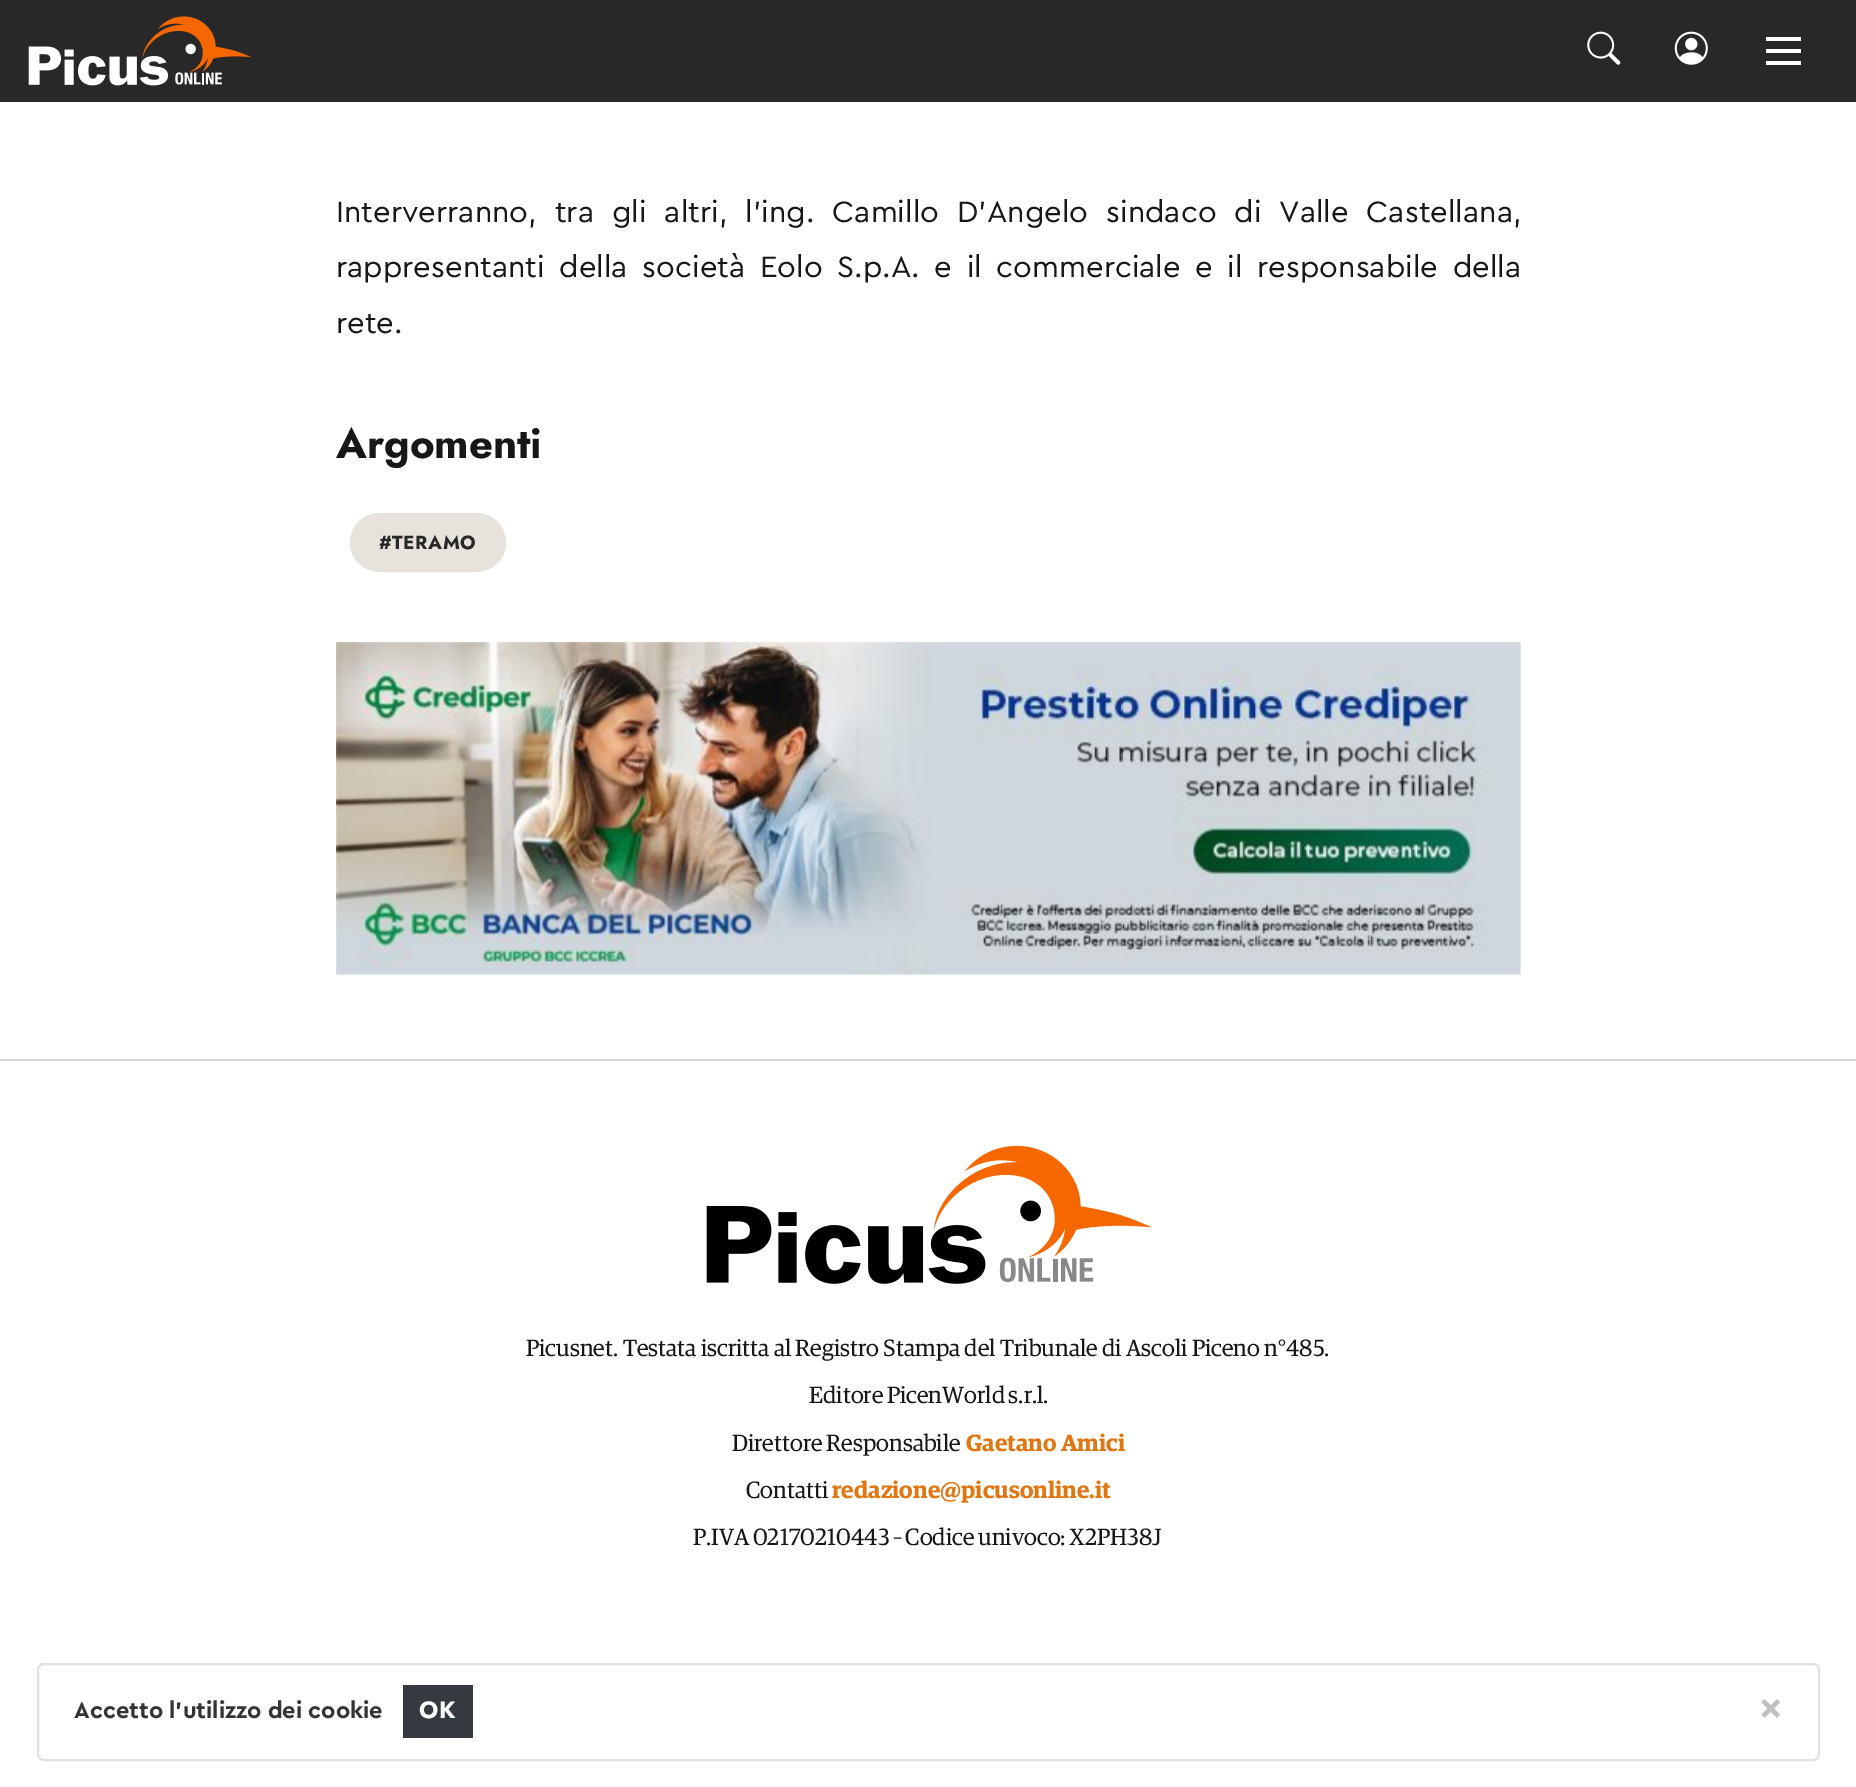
%!PS-Adobe-3.0
%%BoundingBox: 0 0 1856 1787
%%LanguageLevel: 3
%%Pages: 1
%%EndComments
%%BeginProlog
/setink { 3 { 255 div 3 1 roll } repeat setrgbcolor } def
/usefont { [ exch dup neg 0 0 3 -1 roll 0 0 ] selectfont } def
/drawtext { setink usefont moveto show } def
/fillbox { setink rectfill } def
/rrect { 5 dict begin { /r /h /w /y /x } { exch def } forall
  x r add y moveto x w add y 2 copy h add r arct x w add y h add x 1 index r arct
  x y h add x y r arct x y 2 copy exch w add exch r arct closepath end } def
/drawimage { 5 dict begin { /h /w /y /x /name } { exch def } forall
  gsave x y translate w h scale
  w h 8 [w 0 0 h 0 0] name (r) file false 3 colorimage grestore end } def
%%EndProlog
%%BeginSetup
<< /PageSize [1856 1787] >> setpagedevice
%%EndSetup
%%Page: 1 1
0 1787 translate 1 -1 scale
4 setmiterlimit
0 0 1856 1787 255 255 255 fillbox
0 0 1856 102 40 40 40 fillbox
(assets/img1.rgb) 28 16 223 70 drawimage
(assets/img2.rgb) 1587 31 34 34 drawimage
(assets/img3.rgb) 1674 31 34 34 drawimage
1766 49 35 4 255 255 255 fillbox
1766 37 35 4 255 255 255 fillbox
1766 61 35 4 255 255 255 fillbox
/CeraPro-Regular 30.8 usefont
23 23 23 setink
336 222 moveto 9.25 0 32 (Interverranno, tra gli altri, l’ing. Camillo D’Angelo sindaco di Valle Castellana,) widthshow
336 277 moveto 6 0 32 (rappresentanti della società Eolo S.p.A. e il commerciale e il responsabile della) widthshow
(rete.) 336 333 /CeraPro-Regular 30.8 23 23 23 drawtext
(Argomenti) 336 458 /Jost-Bold 42 23 23 23 drawtext
232 226 220 setink
351 514 154 57 28.5 rrect gsave fill grestore
2 setlinewidth
stroke
/Jost-Bold 19 usefont
40 40 40 setink
379 549 moveto 0.5 0 (#TERAMO) ashow
(assets/img4.rgb) 336 642 1185 333 drawimage
0 1059 1856 2 217 212 208 fillbox
(assets/img5.rgb) 706 1145 446 139 drawimage
/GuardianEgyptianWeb-Regular 23.6 usefont
23 23 23 setink
526 1356 moveto -0.25 0 32 (Picusnet. Testata iscritta al Registro Stampa del Tribunale di Ascoli Piceno n°485.) widthshow
809 1403 moveto -1 0 32 (Editore PicenWorld s.r.l.) widthshow
732 1451 moveto -1 0 32 (Direttore Responsabile) widthshow
(Gaetano Amici) 966 1451 /GuardianEgyptianWeb-SemiBold 23.6 224 119 19 drawtext
(Contatti) 746 1498 /GuardianEgyptianWeb-Regular 23.6 23 23 23 drawtext
(redazione@picusonline.it) 832 1498 /GuardianEgyptianWeb-SemiBold 23.6 224 119 19 drawtext
/GuardianEgyptianWeb-Regular 23.6 usefont
23 23 23 setink
693 1545 moveto -1 0 32 (P.IVA 02170210443 – Codice univoco: X2PH38J) widthshow
222 226 230 setink
38 1664 1781 96 6 rrect stroke
/CeraPro-Bold 23.6 usefont
52 52 52 setink
74 1718 moveto -0.5 0 32 (Accetto l'utilizzo dei cookie) widthshow
403 1685 70 53 52 58 64 fillbox
/Jost-Bold 23.6 usefont
255 255 255 setink
419 1718 moveto 0.5 0 (OK) ashow
(×) 1759 1722 /CeraPro-Bold 42 192 192 192 drawtext
showpage
%%EOF
